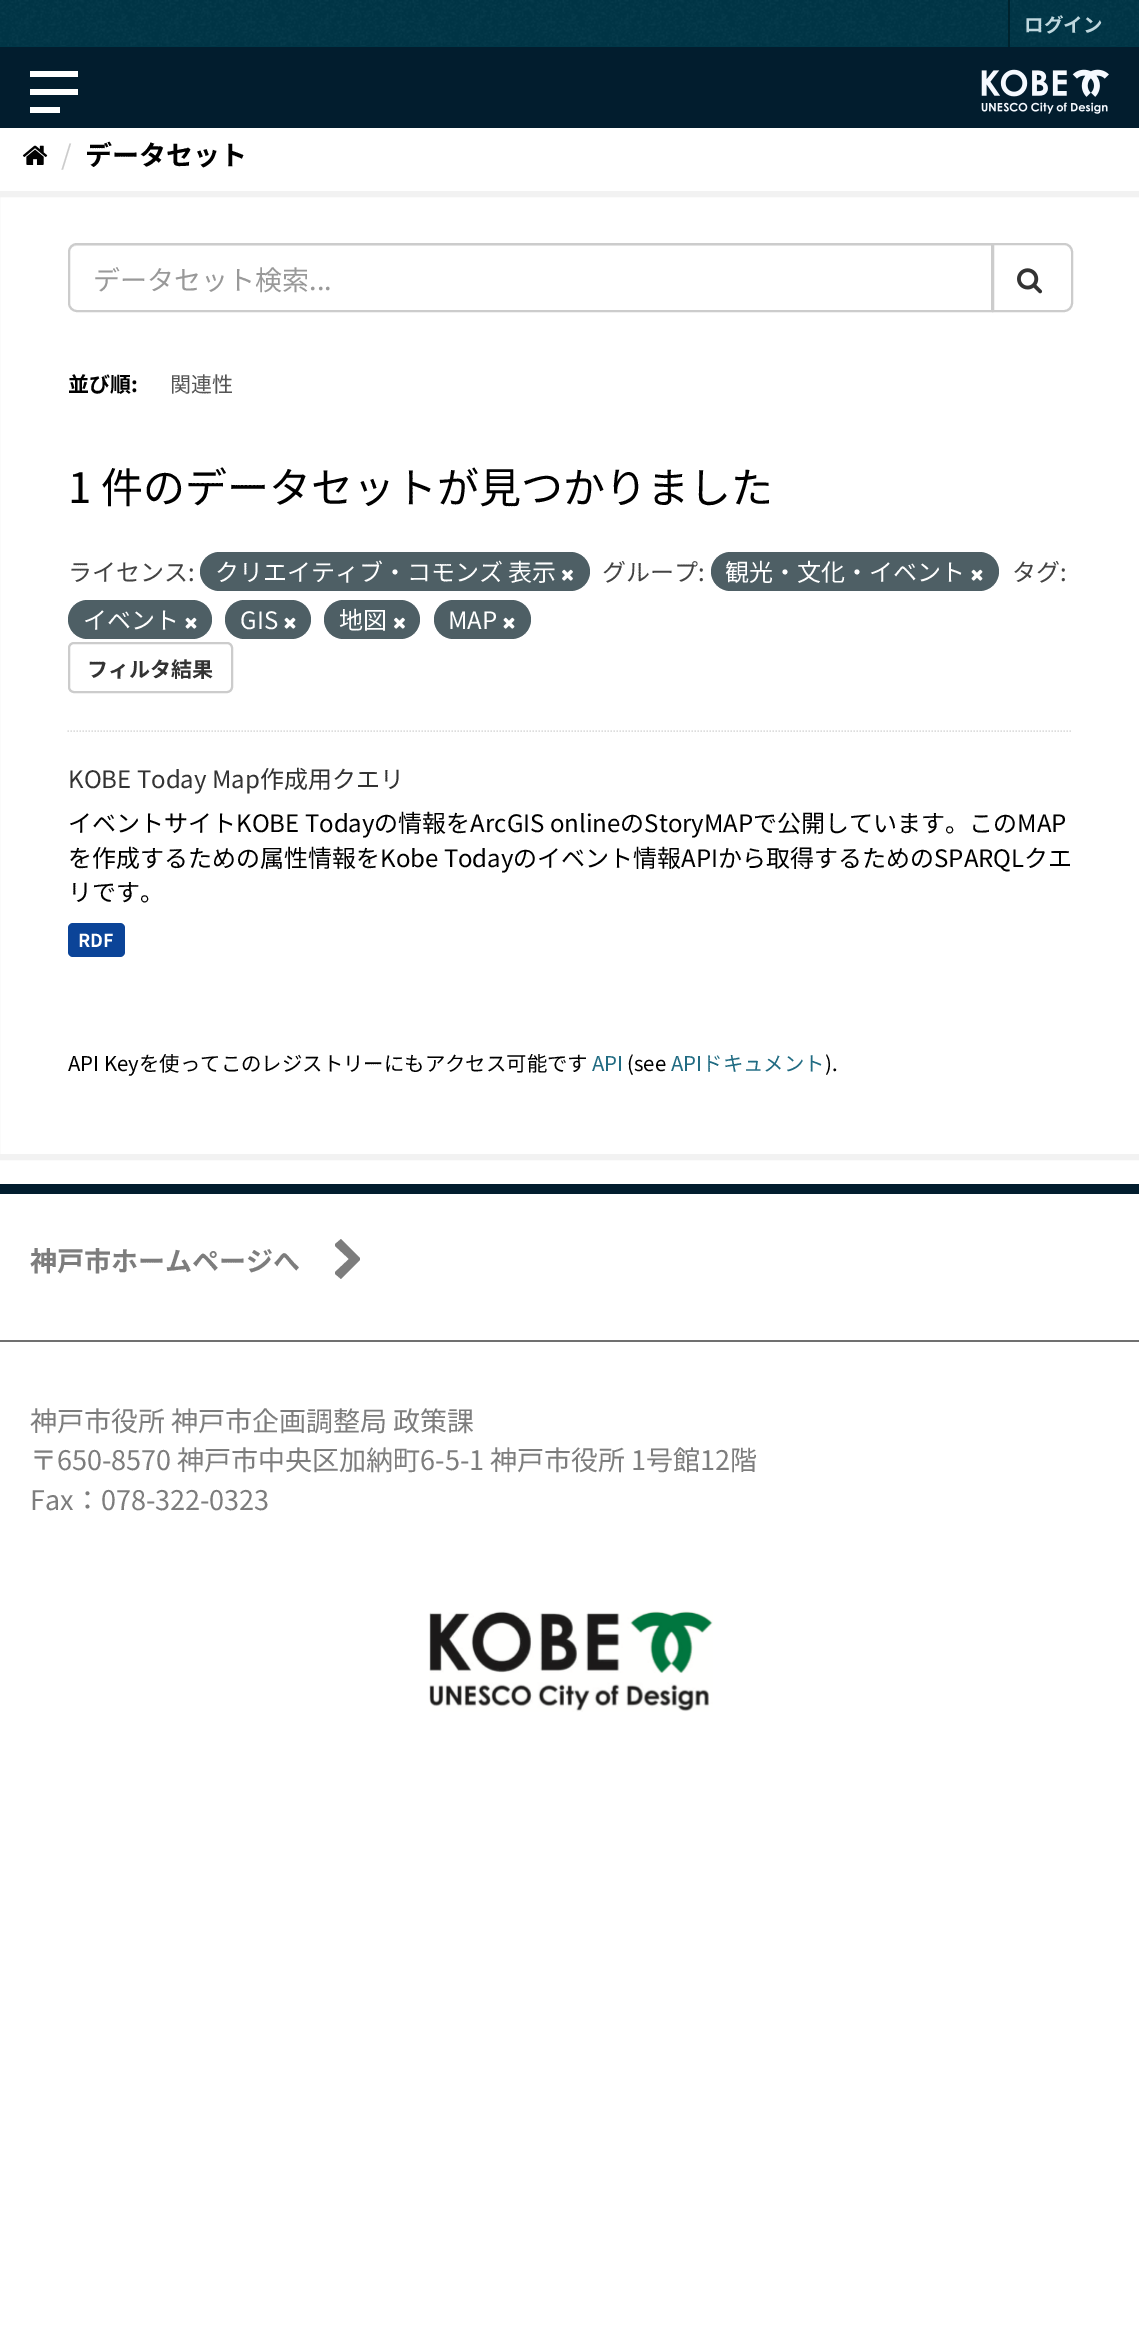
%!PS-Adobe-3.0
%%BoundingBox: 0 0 1139 2330
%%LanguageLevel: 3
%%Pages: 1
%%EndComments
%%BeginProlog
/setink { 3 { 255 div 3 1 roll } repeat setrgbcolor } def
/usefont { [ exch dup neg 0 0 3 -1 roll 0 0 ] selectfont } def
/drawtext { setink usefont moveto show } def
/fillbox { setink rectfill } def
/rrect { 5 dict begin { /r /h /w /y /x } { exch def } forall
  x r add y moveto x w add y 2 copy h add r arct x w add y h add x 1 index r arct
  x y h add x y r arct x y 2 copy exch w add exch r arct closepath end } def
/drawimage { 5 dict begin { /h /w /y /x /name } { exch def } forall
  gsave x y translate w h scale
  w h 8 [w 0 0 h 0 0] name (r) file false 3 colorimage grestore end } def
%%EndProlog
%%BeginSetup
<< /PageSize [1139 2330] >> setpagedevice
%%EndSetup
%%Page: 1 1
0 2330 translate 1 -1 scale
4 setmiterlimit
0 0 1139 2330 255 255 255 fillbox
0 0 1139 47 0 54 71 fillbox
(assets/img1.rgb) 0 0 1139 46 drawimage
1008 0 2 47 0 35 46 fillbox
(ログイン) 1024 32 /NotoSansJP-Bold 19.5 191 215 222 drawtext
0 47 1139 81 2 29 46 fillbox
30 71 48 6 255 255 255 fillbox
30 89 48 6 255 255 255 fillbox
30 107 30 6 255 255 255 fillbox
(assets/img2.rgb) 981 69 128 45 drawimage
(assets/img3.rgb) 22 145 26 20 drawimage
(/) 61 165 /NotoSansJP-Regular 27 204 204 204 drawtext
(データセット) 85 165 /NotoSansJP-Bold 27 0 0 0 drawtext
242 242 242 setink
6 setlinewidth
-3 194 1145 963 rectstroke
221 221 221 setink
1.5 setlinewidth
[1.5 1.5] 0 setdash
67.5 731 moveto 1072.5 731 lineto stroke
236 236 236 setink
76 246 moveto 992 246 lineto 992 245 lineto 77 245 lineto 72 245 69 249 69 254 curveto 69 249 72 246 76 246 curveto closepath fill
204 204 204 setink
2 setlinewidth
[] 0 setdash
77 244 moveto 992 244 lineto 992 311 lineto 77 311 lineto 72.5 311 69 307.5 69 303 curveto 69 252 lineto 69 247.5 72.5 244 77 244 curveto closepath stroke
(データセット検索...) 93 290 /NotoSansJP-Regular 27 153 153 153 drawtext
255 255 255 setink
993 244 moveto 1064 244 lineto 1068.5 244 1072 247.5 1072 252 curveto 1072 303 lineto 1072 307.5 1068.5 311 1064 311 curveto 993 311 lineto closepath gsave fill grestore
204 204 204 setink
stroke
(assets/img4.rgb) 1017 268 26 26 drawimage
(並び順:) 68 392 /NotoSansJP-Bold 21 0 0 0 drawtext
(関連性) 170 392 /NotoSansJP-Regular 21 85 85 85 drawtext
(1 件のデータセットが見つかりました) 68 503 /NotoSansJP-Regular 42 0 0 0 drawtext
(ライセンス:) 68 581 /NotoSansJP-Regular 24 68 68 68 drawtext
78 95 101 setink
200 552 390 39 19.5 rrect fill
(クリエイティブ・コモンズ 表示) 215 581 /NotoSansJP-Regular 24 255 255 255 drawtext
(assets/img5.rgb) 562 569 11 12 drawimage
(グループ:) 602 581 /NotoSansJP-Regular 24 68 68 68 drawtext
78 95 101 setink
711 552 288 39 19.5 rrect fill
(観光・文化・イベント) 725 581 /NotoSansJP-Regular 24 255 255 255 drawtext
(assets/img6.rgb) 971 569 12 12 drawimage
(タグ:) 1012 581 /NotoSansJP-Regular 24 68 68 68 drawtext
78 95 101 setink
68 600 144 39 19.5 rrect fill
(イベント) 83 629 /NotoSansJP-Regular 24 255 255 255 drawtext
(assets/img6.rgb) 185 617 12 12 drawimage
78 95 101 setink
225 600 86 39 19.5 rrect fill
(GIS) 240 629 /NotoSansJP-Regular 24 255 255 255 drawtext
(assets/img6.rgb) 284 617 12 12 drawimage
78 95 101 setink
324 600 96 39 19.5 rrect fill
(地図) 339 629 /NotoSansJP-Regular 24 255 255 255 drawtext
(assets/img5.rgb) 394 617 11 12 drawimage
78 95 101 setink
434 600 97 39 19.5 rrect fill
(MAP) 448 629 /NotoSansJP-Regular 24 255 255 255 drawtext
(assets/img6.rgb) 503 617 12 12 drawimage
204 204 204 setink
69 643 163 49 5 rrect stroke
(フィルタ結果) 87 677 /NotoSansJP-Bold 21 51 51 51 drawtext
(KOBE Today Map作成用クエリ) 68 788 /NotoSansJP-Regular 24 51 51 51 drawtext
(イベントサイトKOBE Todayの情報をArcGIS onlineのStoryMAPで公開しています。このMAP) 68 832 /NotoSansJP-Regular 24 0 0 0 drawtext
(を作成するための属性情報をKobe Todayのイベント情報APIから取得するためのSPARQLクエ) 68 867 /NotoSansJP-Regular 24 0 0 0 drawtext
(リです。) 68 901 /NotoSansJP-Regular 24 0 0 0 drawtext
11 68 152 setink
68 923 57 34 5 rrect fill
(RDF) 78 947 /NotoSansJP-Bold 18 255 255 255 drawtext
(API Keyを使ってこのレジストリーにもアクセス可能です) 68 1071 /NotoSansJP-Regular 20.4 0 0 0 drawtext
(API) 592 1071 /NotoSansJP-Regular 20.4 32 107 130 drawtext
(\(see) 627 1071 /NotoSansJP-Regular 20.4 0 0 0 drawtext
(APIドキュメント) 671 1071 /NotoSansJP-Regular 20.4 32 107 130 drawtext
(\).) 825 1071 /NotoSansJP-Regular 20.4 0 0 0 drawtext
0 1184 1139 10 2 29 46 fillbox
gsave
335 1239 25 41 rectclip
125 125 125 setink
361 1259 moveto 341 1279 lineto 334 1273 lineto 349 1259 lineto 334 1245 lineto 341 1239 lineto closepath fill
grestore
(神戸市ホームページへ) 30 1271 /NotoSansJP-Bold 27 125 125 125 drawtext
0 1340 1139 2 112 112 112 fillbox
(神戸市役所 神戸市企画調整局 政策課) 30 1431 /NotoSansJP-Regular 27 125 125 125 drawtext
(〒650-8570 神戸市中央区加納町6-5-1 神戸市役所 1号館12階) 30 1470 /NotoSansJP-Regular 27 125 125 125 drawtext
(Fax：078-322-0323) 30 1510 /NotoSansJP-Regular 27 125 125 125 drawtext
(assets/img7.rgb) 429 1610 284 102 drawimage
showpage
%%EOF
